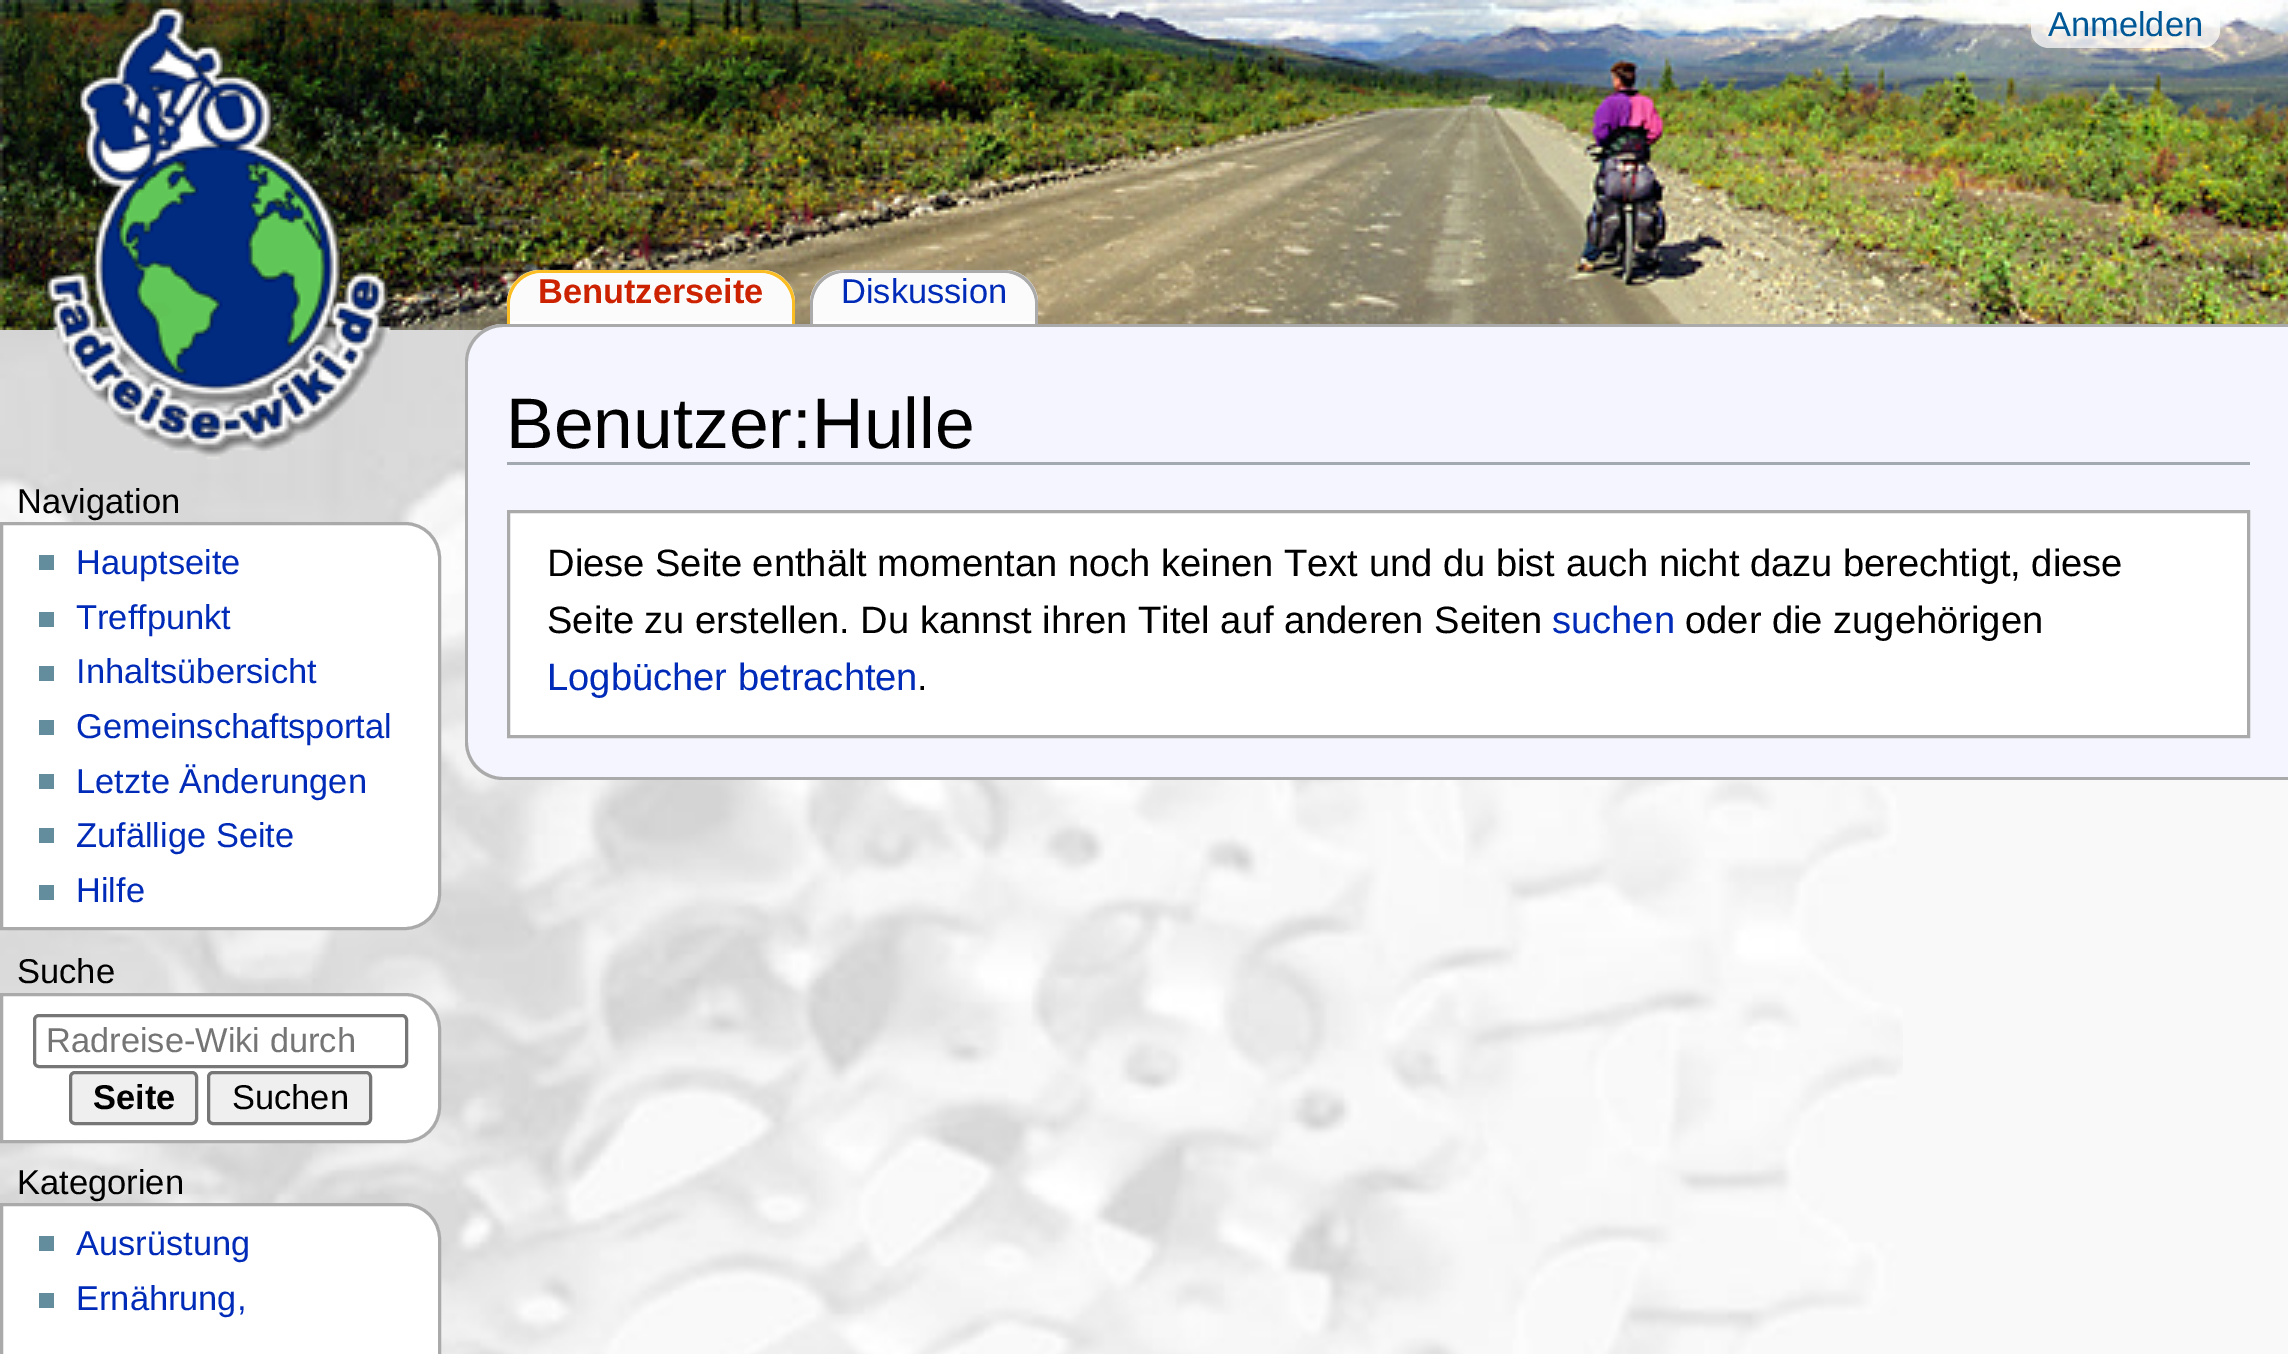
%!PS-Adobe-3.0
%%BoundingBox: 0 0 2288 1354
%%LanguageLevel: 3
%%Pages: 1
%%EndComments
%%BeginProlog
/setink { 3 { 255 div 3 1 roll } repeat setrgbcolor } def
/usefont { [ exch dup neg 0 0 3 -1 roll 0 0 ] selectfont } def
/drawtext { setink usefont moveto show } def
/fillbox { setink rectfill } def
/setalpha { dup .setfillconstantalpha .setstrokeconstantalpha } def
/rrect { 5 dict begin { /r /h /w /y /x } { exch def } forall
  x r add y moveto x w add y 2 copy h add r arct x w add y h add x 1 index r arct
  x y h add x y r arct x y 2 copy exch w add exch r arct closepath end } def
/drawimage { 5 dict begin { /h /w /y /x /name } { exch def } forall
  gsave x y translate w h scale
  w h 8 [w 0 0 h 0 0] name (r) file false 3 colorimage grestore end } def
%%EndProlog
%%BeginSetup
<< /PageSize [2288 1354] /PageUsesTransparency true >> setpagedevice
%%EndSetup
%%Page: 1 1
0 .pushpdf14devicefilter
0 1354 translate 1 -1 scale
4 setmiterlimit
0 0 2288 1354 249 249 249 fillbox
(assets/img1.rgb) 0 0 2288 330 drawimage
(assets/img2.rgb) 0 330 1903 1024 drawimage
(assets/img3.rgb) 44 5 347 455 drawimage
0.7 setalpha
255 255 255 setink
2031 -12 moveto 2220 -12 lineto 2220 30 lineto 2220 40 2212 48 2202 48 curveto 2049 48 lineto 2039 48 2031 40 2031 30 curveto closepath fill
1 setalpha
(Anmelden) 2048 36 /LiberationSans-Regular 34.4 0 88 150 drawtext
255 255 255 setink
540 270 moveto 762 270 lineto 780 270 795 285 795 303 curveto 795 324 lineto 507 324 lineto 507 303 lineto 507 285 522 270 540 270 curveto closepath fill
250 189 35 setink
541 270 moveto 761 270 lineto 780 270 795 285 795 304 curveto 795 324 lineto 507 324 lineto 507 304 lineto 507 285 522 270 541 270 curveto closepath 541 273 moveto 761 273 lineto 778 273 792 287 792 304 curveto 792 324 lineto 510 324 lineto 510 304 lineto 510 287 524 273 541 273 curveto closepath eofill
251 251 251 setink
543 273 moveto 759 273 lineto 777 273 792 288 792 306 curveto 792 321 lineto 510 321 lineto 510 306 lineto 510 288 525 273 543 273 curveto closepath fill
(Benutzerseite) 538 303 /LiberationSans-Bold 34.4 204 34 0 drawtext
255 255 255 setink
843 270 moveto 1005 270 lineto 1023 270 1038 285 1038 303 curveto 1038 324 lineto 810 324 lineto 810 303 lineto 810 285 825 270 843 270 curveto closepath fill
170 170 170 setink
844 270 moveto 1004 270 lineto 1023 270 1038 285 1038 304 curveto 1038 324 lineto 810 324 lineto 810 304 lineto 810 285 825 270 844 270 curveto closepath 844 273 moveto 1004 273 lineto 1021 273 1035 287 1035 304 curveto 1035 324 lineto 813 324 lineto 813 304 lineto 813 287 827 273 844 273 curveto closepath eofill
251 251 251 setink
846 273 moveto 1002 273 lineto 1020 273 1035 288 1035 306 curveto 1035 321 lineto 813 321 lineto 813 306 lineto 813 288 828 273 846 273 curveto closepath fill
(Diskussion) 841 303 /LiberationSans-Regular 34.4 0 43 184 drawtext
(Navigation) 17 513 /LiberationSans-Regular 34.5 0 0 0 drawtext
255 255 255 setink
1.5 523.5 moveto 405 523.5 lineto 424 523.5 439.5 539 439.5 558 curveto 439.5 894 lineto 439.5 913 424 928.5 405 928.5 curveto 1.5 928.5 lineto closepath gsave fill grestore
170 170 170 setink
3 setlinewidth
stroke
39 555 15 15 99 140 156 fillbox
(Hauptseite) 76 574 /LiberationSans-Regular 34.4 0 43 184 drawtext
39 612 15 15 99 140 156 fillbox
(Treffpunkt) 76 629 /LiberationSans-Regular 34.4 0 43 184 drawtext
39 666 15 15 99 140 156 fillbox
(Inhaltsübersicht) 76 683 /LiberationSans-Regular 34.4 0 43 184 drawtext
39 720 15 15 99 140 156 fillbox
(Gemeinschaftsportal) 76 738 /LiberationSans-Regular 34.4 0 43 184 drawtext
39 774 15 15 99 140 156 fillbox
(Letzte Änderungen) 76 793 /LiberationSans-Regular 34.4 0 43 184 drawtext
39 828 15 15 99 140 156 fillbox
(Zufällige Seite) 76 847 /LiberationSans-Regular 34.4 0 43 184 drawtext
39 885 15 15 99 140 156 fillbox
(Hilfe) 76 902 /LiberationSans-Regular 34.4 0 43 184 drawtext
(Suche) 17 983 /LiberationSans-Regular 34.5 0 0 0 drawtext
255 255 255 setink
1.5 994.5 moveto 405 994.5 lineto 424 994.5 439.5 1010 439.5 1029 curveto 439.5 1107 lineto 439.5 1126 424 1141.5 405 1141.5 curveto 1.5 1141.5 lineto closepath gsave fill grestore
170 170 170 setink
stroke
118 118 118 setink
34.5 1015.5 372 51 4.5 rrect stroke
(Radreise-Wiki durch) 46 1052 /LiberationSans-Regular 34.4 117 117 117 drawtext
239 239 239 setink
70.5 1072.5 126 51 4.5 rrect gsave fill grestore
118 118 118 setink
stroke
(Seite) 93 1109 /LiberationSans-Bold 34.4 0 0 0 drawtext
239 239 239 setink
208.5 1072.5 162 51 4.5 rrect gsave fill grestore
118 118 118 setink
stroke
(Suchen) 232 1109 /LiberationSans-Regular 34.4 0 0 0 drawtext
(Kategorien) 17 1194 /LiberationSans-Regular 34.5 0 0 0 drawtext
255 255 255 setink
1.5 1204.5 moveto 405 1204.5 lineto 424 1204.5 439.5 1220 439.5 1239 curveto 439.5 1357 lineto 439.5 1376 424 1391.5 405 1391.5 curveto 1.5 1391.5 lineto closepath gsave fill grestore
170 170 170 setink
stroke
39 1236 15 15 99 140 156 fillbox
(Ausrüstung) 76 1255 /LiberationSans-Regular 34.4 0 43 184 drawtext
39 1293 15 15 99 140 156 fillbox
(Ernährung,) 76 1310 /LiberationSans-Regular 34.4 0 43 184 drawtext
245 245 255 setink
504 324 moveto 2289 324 lineto 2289 780 lineto 504 780 lineto 482.5 780 465 762.5 465 741 curveto 465 363 lineto 465 341.5 482.5 324 504 324 curveto closepath fill
170 170 170 setink
503 324 moveto 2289 324 lineto 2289 780 lineto 503 780 lineto 482 780 465 763 465 742 curveto 465 362 lineto 465 341 482 324 503 324 curveto closepath 503 327 moveto 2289 327 lineto 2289 777 lineto 503 777 lineto 484 777 468 761 468 742 curveto 468 362 lineto 468 343 484 327 503 327 curveto closepath eofill
507 462 1743 3 162 169 177 fillbox
(Benutzer:Hulle) 506 448 /LiberationSans-Regular 71.5 0 0 0 drawtext
255 255 255 setink
508.5 511.5 moveto 2248.5 511.5 lineto 2248.5 736.5 lineto 508.5 736.5 lineto closepath gsave fill grestore
170 170 170 setink
stroke
(Diese Seite enthält momentan noch keinen Text und du bist auch nicht dazu berechtigt, diese) 547 576 /LiberationSans-Regular 38.1 0 0 0 drawtext
(Seite zu erstellen. Du kannst ihren Titel auf anderen Seiten) 547 633 /LiberationSans-Regular 38.1 0 0 0 drawtext
(suchen) 1552 633 /LiberationSans-Regular 38.1 0 43 184 drawtext
(oder die zugehörigen) 1685 633 /LiberationSans-Regular 38.1 0 0 0 drawtext
(Logbücher betrachten) 547 690 /LiberationSans-Regular 38.1 0 43 184 drawtext
(.) 917 690 /LiberationSans-Regular 38.1 0 0 0 drawtext
.poppdf14devicefilter showpage
%%EOF
